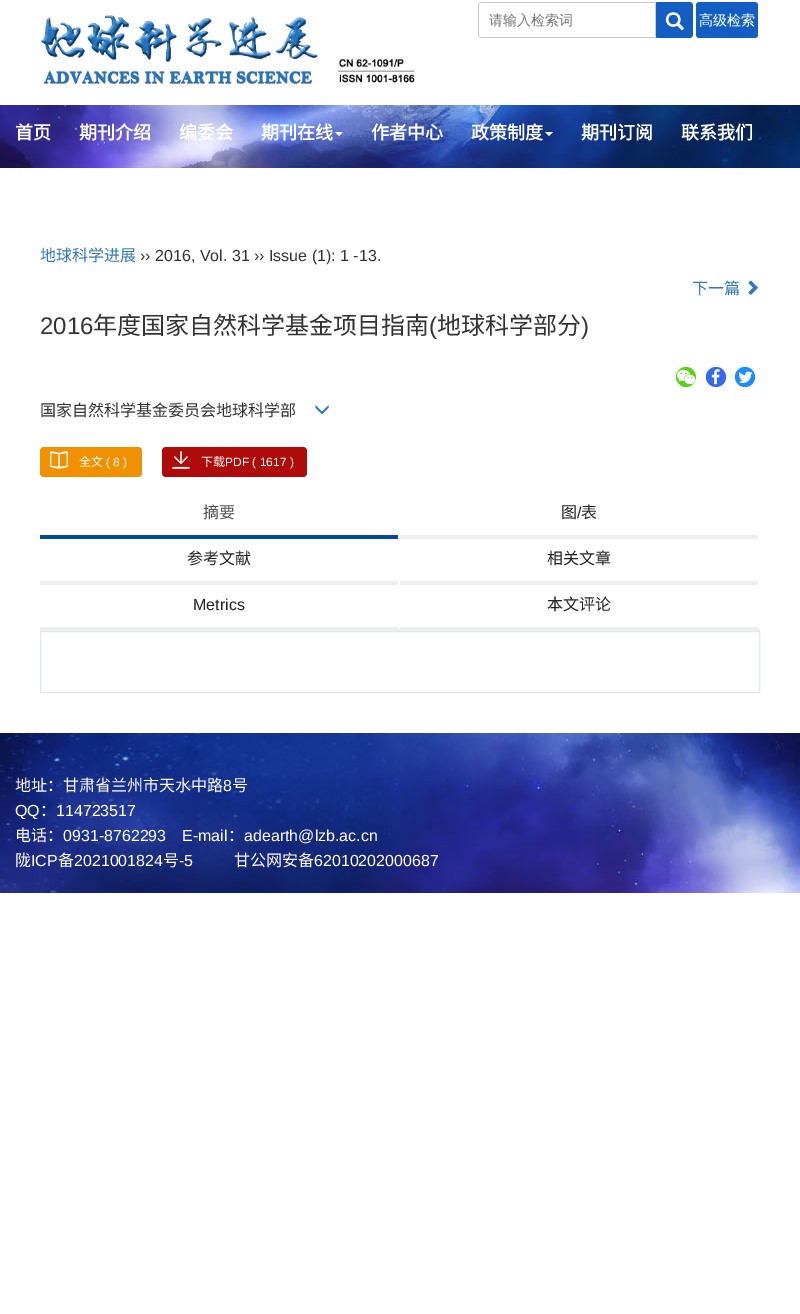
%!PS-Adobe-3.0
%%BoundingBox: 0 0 800 1314
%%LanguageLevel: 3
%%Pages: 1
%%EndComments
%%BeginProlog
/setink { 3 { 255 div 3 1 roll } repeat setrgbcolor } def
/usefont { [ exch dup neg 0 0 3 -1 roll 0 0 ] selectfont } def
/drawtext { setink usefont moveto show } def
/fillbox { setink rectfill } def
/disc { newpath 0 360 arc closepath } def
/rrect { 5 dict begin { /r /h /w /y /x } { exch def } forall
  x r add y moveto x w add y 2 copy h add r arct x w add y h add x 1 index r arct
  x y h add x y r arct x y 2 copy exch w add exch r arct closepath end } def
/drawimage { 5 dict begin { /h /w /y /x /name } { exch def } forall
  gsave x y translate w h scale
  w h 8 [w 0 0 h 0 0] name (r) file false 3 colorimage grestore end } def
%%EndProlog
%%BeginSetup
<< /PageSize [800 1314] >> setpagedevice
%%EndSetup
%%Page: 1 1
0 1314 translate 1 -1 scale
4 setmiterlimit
0 0 800 1314 255 255 255 fillbox
(assets/img1.rgb) 41 15 374 69 drawimage
(assets/img2.rgb) 478 2 280 36 drawimage
(assets/img3.rgb) 0 105 800 63 drawimage
(首页) 15 139 /NotoSansCJKSC-Bold 18 255 255 255 drawtext
(期刊介绍) 79 139 /NotoSansCJKSC-Bold 18 255 255 255 drawtext
(编委会) 179 139 /NotoSansCJKSC-Bold 18 255 255 255 drawtext
(期刊在线) 261 139 /NotoSansCJKSC-Bold 18 255 255 255 drawtext
335 132 moveto 343 132 lineto 339 136 lineto closepath fill
(作者中心) 371 139 /NotoSansCJKSC-Bold 18 255 255 255 drawtext
(政策制度) 471 139 /NotoSansCJKSC-Bold 18 255 255 255 drawtext
545 132 moveto 553 132 lineto 549 136 lineto closepath fill
(期刊订阅) 581 139 /NotoSansCJKSC-Bold 18 255 255 255 drawtext
(联系我们) 681 139 /NotoSansCJKSC-Bold 18 255 255 255 drawtext
(地球科学进展) 40 261 /NotoSansCJKSC-Regular 16 51 122 183 drawtext
(›› 2016, Vol. 31 ›› Issue \(1\): 1 -13.) 140 261 /LiberationSans-Regular 16 51 51 51 drawtext
(下一篇) 692 294 /NotoSansCJKSC-Regular 16 51 122 183 drawtext
(assets/img4.rgb) 748 280 11 15 drawimage
(2016) 40 334 /LiberationSans-Regular 24 51 51 51 drawtext
(年度国家自然科学基金项目指南) 93 334 /NotoSansCJKSC-Regular 24 51 51 51 drawtext
(\() 429 334 /LiberationSans-Regular 24 51 51 51 drawtext
(地球科学部分) 437 334 /NotoSansCJKSC-Regular 24 51 51 51 drawtext
(\)) 581 334 /LiberationSans-Regular 24 51 51 51 drawtext
85 211 21 setink
686 377 10 disc fill
(assets/img5.rgb) 677 369 19 16 drawimage
53 106 236 setink
716 377 10 disc fill
(assets/img6.rgb) 711 369 9 16 drawimage
25 141 255 setink
745 377 10 disc fill
(assets/img7.rgb) 738 371 15 12 drawimage
(国家自然科学基金委员会地球科学部) 40 416 /NotoSansCJKSC-Regular 16 51 51 51 drawtext
(assets/img8.rgb) 315 405 14 10 drawimage
241 145 0 setink
40 447 102 30 4 rrect fill
(assets/img9.rgb) 50 451 18 18 drawimage
(全文) 79 466 /NotoSansCJKSC-Regular 12 255 255 255 drawtext
(\( 8 \)) 106 466 /LiberationSans-Regular 12 255 255 255 drawtext
176 11 11 setink
162 447 145 30 4 rrect fill
(assets/img10.rgb) 172 451 18 18 drawimage
(下载) 201 466 /NotoSansCJKSC-Regular 12 255 255 255 drawtext
(PDF \( 1617 \)) 225 466 /LiberationSans-Regular 12 255 255 255 drawtext
398 630 362 1 221 221 221 fillbox
40 535 358 4 1 75 156 fillbox
(摘要) 203 518 /NotoSansCJKSC-Regular 16 85 85 85 drawtext
400 535 358 4 238 238 238 fillbox
(图) 561 518 /NotoSansCJKSC-Regular 16 34 34 34 drawtext
(/) 577 518 /LiberationSans-Regular 16 34 34 34 drawtext
(表) 581 518 /NotoSansCJKSC-Regular 16 34 34 34 drawtext
40 581 358 4 238 238 238 fillbox
(参考文献) 187 564 /NotoSansCJKSC-Regular 16 34 34 34 drawtext
400 581 358 4 238 238 238 fillbox
(相关文章) 547 564 /NotoSansCJKSC-Regular 16 34 34 34 drawtext
40 627 358 4 238 238 238 fillbox
(Metrics) 193 610 /LiberationSans-Regular 16 34 34 34 drawtext
400 627 358 4 238 238 238 fillbox
(本文评论) 547 610 /NotoSansCJKSC-Regular 16 34 34 34 drawtext
228 231 237 setink
40.5 631.5 719 61 rectstroke
(assets/img11.rgb) 0 733 800 160 drawimage
(地址：甘肃省兰州市天水中路) 15 791 /NotoSansCJKSC-Regular 16 255 255 255 drawtext
(8) 223 791 /LiberationSans-Regular 16 255 255 255 drawtext
(号) 232 791 /NotoSansCJKSC-Regular 16 255 255 255 drawtext
(QQ) 15 816 /LiberationSans-Regular 16 255 255 255 drawtext
(：) 40 816 /NotoSansCJKSC-Regular 16 255 255 255 drawtext
(114723517) 56 816 /LiberationSans-Regular 16 255 255 255 drawtext
(电话：) 15 841 /NotoSansCJKSC-Regular 16 255 255 255 drawtext
(0931-8762293) 63 841 /LiberationSans-Regular 16 255 255 255 drawtext
(E-mail) 182 841 /LiberationSans-Regular 16 255 255 255 drawtext
(：) 228 841 /NotoSansCJKSC-Regular 16 255 255 255 drawtext
(adearth@lzb.ac.cn) 244 841 /LiberationSans-Regular 16 255 255 255 drawtext
(陇) 15 866 /NotoSansCJKSC-Regular 16 255 255 255 drawtext
(ICP) 31 866 /LiberationSans-Regular 16 255 255 255 drawtext
(备) 58 866 /NotoSansCJKSC-Regular 16 255 255 255 drawtext
(2021001824) 74 866 /LiberationSans-Regular 16 255 255 255 drawtext
(号) 163 866 /NotoSansCJKSC-Regular 16 255 255 255 drawtext
(-5) 179 866 /LiberationSans-Regular 16 255 255 255 drawtext
(甘公网安备) 234 866 /NotoSansCJKSC-Regular 16 255 255 255 drawtext
(62010202000687) 314 866 /LiberationSans-Regular 16 255 255 255 drawtext
showpage
%%EOF
